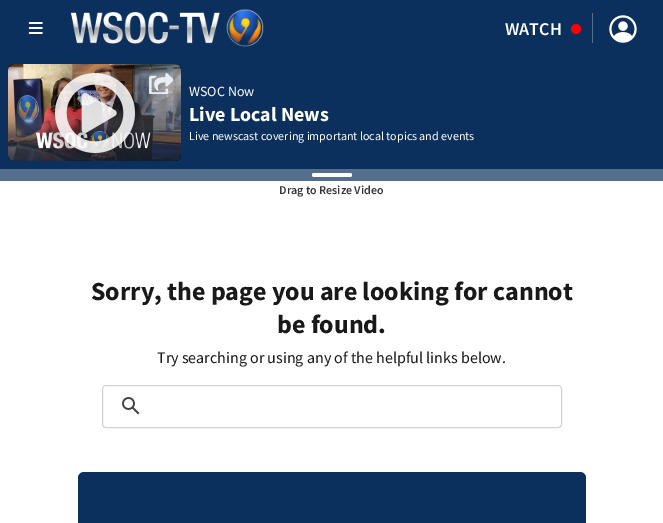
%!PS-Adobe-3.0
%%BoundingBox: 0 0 663 523
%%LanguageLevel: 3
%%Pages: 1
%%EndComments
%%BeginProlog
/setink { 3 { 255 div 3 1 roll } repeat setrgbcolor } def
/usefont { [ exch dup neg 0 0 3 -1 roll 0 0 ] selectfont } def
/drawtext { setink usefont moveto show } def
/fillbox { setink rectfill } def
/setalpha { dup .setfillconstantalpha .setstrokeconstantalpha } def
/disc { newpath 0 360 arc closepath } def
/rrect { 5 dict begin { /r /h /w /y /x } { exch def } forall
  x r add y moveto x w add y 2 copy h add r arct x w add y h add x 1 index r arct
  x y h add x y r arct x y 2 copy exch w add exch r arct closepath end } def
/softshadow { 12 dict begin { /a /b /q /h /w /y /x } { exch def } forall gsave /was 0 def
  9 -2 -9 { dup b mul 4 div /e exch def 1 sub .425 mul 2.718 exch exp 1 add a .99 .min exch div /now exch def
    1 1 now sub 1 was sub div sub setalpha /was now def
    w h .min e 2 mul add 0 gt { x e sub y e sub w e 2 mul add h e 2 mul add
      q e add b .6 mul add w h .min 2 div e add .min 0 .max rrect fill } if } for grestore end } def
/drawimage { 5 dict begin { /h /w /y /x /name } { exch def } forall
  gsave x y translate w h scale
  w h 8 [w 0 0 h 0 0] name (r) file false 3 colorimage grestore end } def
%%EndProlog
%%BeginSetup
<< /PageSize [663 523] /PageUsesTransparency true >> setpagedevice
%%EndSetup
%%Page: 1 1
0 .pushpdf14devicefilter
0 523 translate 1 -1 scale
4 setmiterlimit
0 0 663 523 255 255 255 fillbox
0 56 663 113 11 48 93 fillbox
(assets/img4.rgb) 8 64 173 97 drawimage
gsave
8 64 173 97 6 rrect clip newpath
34 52 moveto 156 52 lineto 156 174 lineto 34 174 lineto closepath 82 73 moveto 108 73 lineto 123 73 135 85 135 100 curveto 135 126 lineto 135 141 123 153 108 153 curveto 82 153 lineto 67 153 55 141 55 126 curveto 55 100 lineto 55 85 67 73 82 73 curveto closepath eoclip newpath
0 0 0 setink
50 68 90 90 32 5 0.21 softshadow
grestore
0 0 663 56 11 48 93 fillbox
(assets/img1.rgb) 28 22 15 12 drawimage
(assets/img2.rgb) 70 9 194 38 drawimage
(WATCH) 505 35 /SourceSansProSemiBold-SemiBold 18 255 255 255 drawtext
255 0 0 setink
576 29 5 disc fill
592 13 1 30 84 110 142 fillbox
(assets/img3.rgb) 609 15 28 28 drawimage
0.21 setalpha
0 0 0 setink
55 73 80 80 27 rrect fill
1 setalpha
(assets/img5.rgb) 55 73 80 80 drawimage
gsave
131 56 moveto 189 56 lineto 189 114 lineto 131 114 lineto closepath 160 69 moveto 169 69 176 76 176 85 curveto 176 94 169 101 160 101 curveto 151 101 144 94 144 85 curveto 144 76 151 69 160 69 curveto closepath eoclip newpath
141 66 38 38 19 3 0.1 softshadow
grestore
0.1 setalpha
160 85 16 disc fill
1 setalpha
(assets/img6.rgb) 149 73 24 21 drawimage
(WSOC Now) 189 96 /SourceSansPro-Regular 14 255 255 255 drawtext
(Live Local News) 189 121 /SourceSansPro-Bold 20 255 255 255 drawtext
(Live newscast covering important local topics and events) 189 140 /SourceSansPro-Regular 12 255 255 255 drawtext
0 169 663 12 84 110 142 fillbox
255 255 255 setink
312 173 40 4 2 rrect fill
(Drag to Resize Video) 279 194 /SourceSansProSemiBold-SemiBold 12 54 54 54 drawtext
(Sorry, the page you are looking for cannot) 91 300 /SourceSansPro-Bold 26 25 25 25 drawtext
(be found.) 277 333 /SourceSansPro-Bold 26 25 25 25 drawtext
(Try searching or using any of the helpful links below.) 157 363 /SourceSansPro-Regular 16 25 25 25 drawtext
210 210 210 setink
102.5 385.5 459 42 3.5 rrect stroke
(assets/img7.rgb) 122 397 18 18 drawimage
11 48 93 setink
78 472 508 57 6 rrect fill
.poppdf14devicefilter showpage
%%EOF
